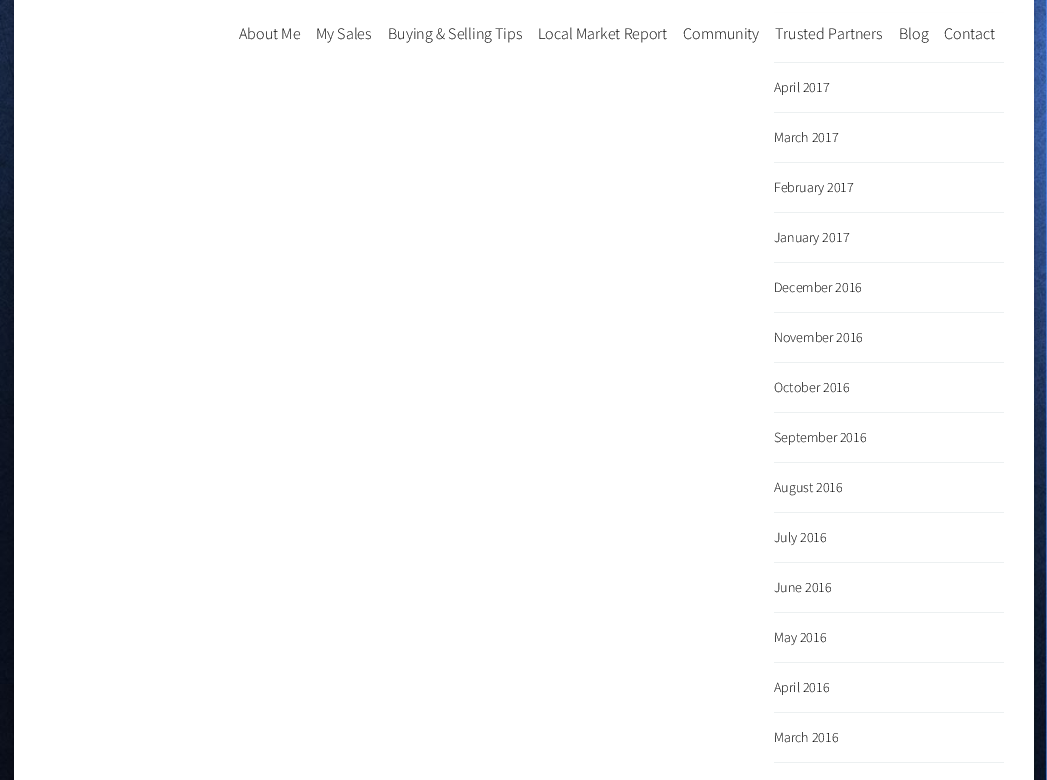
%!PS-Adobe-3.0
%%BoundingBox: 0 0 1047 780
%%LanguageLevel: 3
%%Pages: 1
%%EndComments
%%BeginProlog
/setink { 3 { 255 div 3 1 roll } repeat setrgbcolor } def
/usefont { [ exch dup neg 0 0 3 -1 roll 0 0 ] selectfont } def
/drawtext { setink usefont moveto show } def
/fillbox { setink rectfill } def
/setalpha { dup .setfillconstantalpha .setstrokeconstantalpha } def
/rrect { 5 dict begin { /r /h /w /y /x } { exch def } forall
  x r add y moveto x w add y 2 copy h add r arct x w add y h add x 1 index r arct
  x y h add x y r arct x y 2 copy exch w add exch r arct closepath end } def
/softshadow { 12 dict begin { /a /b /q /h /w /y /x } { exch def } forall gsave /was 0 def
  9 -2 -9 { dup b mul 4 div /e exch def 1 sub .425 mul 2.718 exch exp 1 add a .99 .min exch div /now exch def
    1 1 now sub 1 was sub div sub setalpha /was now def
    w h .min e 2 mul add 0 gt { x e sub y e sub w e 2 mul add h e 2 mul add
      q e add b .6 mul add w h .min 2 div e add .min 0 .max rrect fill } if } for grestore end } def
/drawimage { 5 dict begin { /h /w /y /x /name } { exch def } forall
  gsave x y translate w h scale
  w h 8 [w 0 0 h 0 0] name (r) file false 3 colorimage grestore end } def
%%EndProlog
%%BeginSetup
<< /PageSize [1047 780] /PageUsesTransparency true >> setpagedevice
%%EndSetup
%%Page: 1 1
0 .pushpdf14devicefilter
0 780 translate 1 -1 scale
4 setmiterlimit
0 0 1047 780 255 255 255 fillbox
(assets/img1.rgb) 0 0 1047 780 drawimage
0 0 0 setink
14 -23 1020 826 0 7.5 0.3 softshadow
14 0 1020 780 255 255 255 fillbox
774 12 230 1 236 240 241 fillbox
0.95 setalpha
774 12 230 1 255 255 255 fillbox
1 setalpha
(About Me) 239 39 /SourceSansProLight-Light 16 13 13 13 drawtext
(My Sales) 316 39 /SourceSansProLight-Light 16 13 13 13 drawtext
(Buying & Selling Tips) 388 39 /SourceSansProLight-Light 16 13 13 13 drawtext
(Local Market Report) 538 39 /SourceSansProLight-Light 16 13 13 13 drawtext
(Community) 683 39 /SourceSansProLight-Light 16 13 13 13 drawtext
(Trusted Partners) 775 39 /SourceSansProLight-Light 16 13 13 13 drawtext
(Blog) 899 39 /SourceSansProLight-Light 16 13 13 13 drawtext
(Contact) 944 39 /SourceSansProLight-Light 16 13 13 13 drawtext
774 62 230 1 236 240 241 fillbox
774 112 230 1 236 240 241 fillbox
(April 2017) 774 92 /SourceSansProLight-Light 14 0 0 0 drawtext
774 162 230 1 236 240 241 fillbox
(March 2017) 774 142 /SourceSansProLight-Light 14 0 0 0 drawtext
774 212 230 1 236 240 241 fillbox
(February 2017) 774 192 /SourceSansProLight-Light 14 0 0 0 drawtext
774 262 230 1 236 240 241 fillbox
(January 2017) 774 242 /SourceSansProLight-Light 14 0 0 0 drawtext
774 312 230 1 236 240 241 fillbox
(December 2016) 774 292 /SourceSansProLight-Light 14 0 0 0 drawtext
774 362 230 1 236 240 241 fillbox
(November 2016) 774 342 /SourceSansProLight-Light 14 0 0 0 drawtext
774 412 230 1 236 240 241 fillbox
(October 2016) 774 392 /SourceSansProLight-Light 14 0 0 0 drawtext
774 462 230 1 236 240 241 fillbox
(September 2016) 774 442 /SourceSansProLight-Light 14 0 0 0 drawtext
774 512 230 1 236 240 241 fillbox
(August 2016) 774 492 /SourceSansProLight-Light 14 0 0 0 drawtext
774 562 230 1 236 240 241 fillbox
(July 2016) 774 542 /SourceSansProLight-Light 14 0 0 0 drawtext
774 612 230 1 236 240 241 fillbox
(June 2016) 774 592 /SourceSansProLight-Light 14 0 0 0 drawtext
774 662 230 1 236 240 241 fillbox
(May 2016) 774 642 /SourceSansProLight-Light 14 0 0 0 drawtext
774 712 230 1 236 240 241 fillbox
(April 2016) 774 692 /SourceSansProLight-Light 14 0 0 0 drawtext
774 762 230 1 236 240 241 fillbox
(March 2016) 774 742 /SourceSansProLight-Light 14 0 0 0 drawtext
.poppdf14devicefilter showpage
%%EOF
